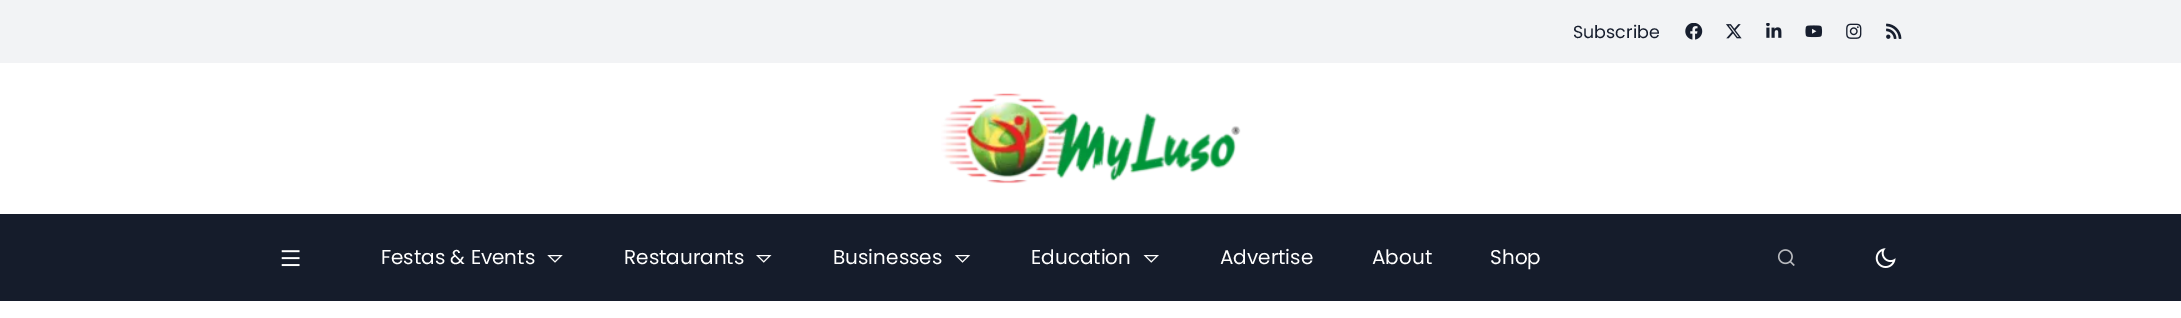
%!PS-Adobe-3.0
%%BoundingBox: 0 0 2181 318
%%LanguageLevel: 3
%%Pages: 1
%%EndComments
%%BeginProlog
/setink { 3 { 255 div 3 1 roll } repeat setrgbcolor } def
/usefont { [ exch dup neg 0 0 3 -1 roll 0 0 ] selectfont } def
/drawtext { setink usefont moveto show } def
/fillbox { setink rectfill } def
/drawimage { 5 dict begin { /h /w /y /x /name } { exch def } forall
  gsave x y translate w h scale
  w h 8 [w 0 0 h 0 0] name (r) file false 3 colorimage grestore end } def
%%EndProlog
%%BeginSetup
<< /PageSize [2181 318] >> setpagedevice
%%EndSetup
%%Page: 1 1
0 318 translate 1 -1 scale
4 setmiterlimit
0 0 2181 318 255 255 255 fillbox
0 0 2181 63 242 243 245 fillbox
(Subscribe) 1573 38 /Poppins-Regular 17.5 23 30 46 drawtext
(assets/img1.rgb) 1685 23 18 17 drawimage
(assets/img2.rgb) 1726 24 16 15 drawimage
(assets/img3.rgb) 1766 23 16 15 drawimage
(assets/img4.rgb) 1805 25 18 13 drawimage
(assets/img5.rgb) 1846 23 16 16 drawimage
(assets/img6.rgb) 1886 23 16 16 drawimage
(assets/img7.rgb) 941 93 300 91 drawimage
0 214 2181 87 21 28 43 fillbox
(assets/img8.rgb) 281 250 19 17 drawimage
(Festas & Events) 381 264 /Poppins-Regular 20 255 255 255 drawtext
(assets/img9.rgb) 547 255 16 8 drawimage
(Restaurants) 624 264 /Poppins-Regular 20 255 255 255 drawtext
(assets/img10.rgb) 756 255 16 8 drawimage
(Businesses) 833 264 /Poppins-Regular 20 255 255 255 drawtext
(assets/img11.rgb) 954 255 17 8 drawimage
(Education) 1031 264 /Poppins-Regular 20 255 255 255 drawtext
(assets/img12.rgb) 1143 255 16 8 drawimage
(Advertise) 1220 264 /Poppins-Regular 20 255 255 255 drawtext
(About) 1372 264 /Poppins-Regular 20 255 255 255 drawtext
(Shop) 1490 264 /Poppins-Regular 20 255 255 255 drawtext
(assets/img13.rgb) 1777 249 18 17 drawimage
(assets/img14.rgb) 1875 248 21 20 drawimage
showpage
%%EOF
